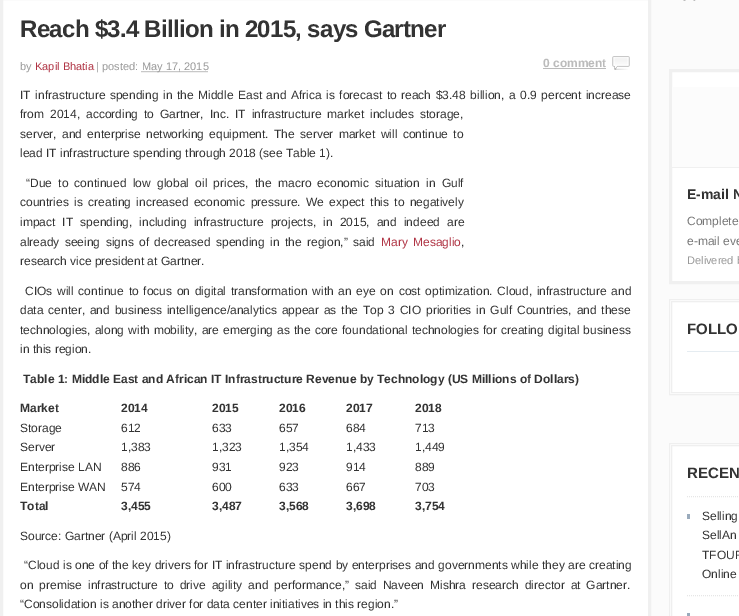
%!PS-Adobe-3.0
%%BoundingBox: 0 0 739 616
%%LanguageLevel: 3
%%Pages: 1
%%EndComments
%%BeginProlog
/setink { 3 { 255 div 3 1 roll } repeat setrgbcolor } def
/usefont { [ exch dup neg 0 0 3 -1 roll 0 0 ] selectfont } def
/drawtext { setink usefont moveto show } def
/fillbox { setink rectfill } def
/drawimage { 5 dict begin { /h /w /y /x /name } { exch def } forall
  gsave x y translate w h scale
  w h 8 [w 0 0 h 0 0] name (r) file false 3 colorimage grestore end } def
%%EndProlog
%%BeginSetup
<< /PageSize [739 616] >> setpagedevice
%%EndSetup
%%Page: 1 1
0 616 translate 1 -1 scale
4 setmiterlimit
0 0 739 616 251 251 251 fillbox
255 255 255 setink
1.5 -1.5 moveto 649.5 -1.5 lineto 649.5 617.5 lineto 1.5 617.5 lineto closepath gsave fill grestore
240 240 240 setink
3 setlinewidth
stroke
/LiberationSans-Bold 24 usefont
51 51 51 setink
20 37 moveto -0.7 0 (Reach $3.4 Billion in 2015, says Gartner) ashow
(by) 20 70 /LiberationSans-Regular 11 153 153 153 drawtext
(Kapil Bhatia) 35 70 /LiberationSans-Regular 11 176 52 68 drawtext
(| posted:) 96 70 /LiberationSans-Regular 11 153 153 153 drawtext
1 setlinewidth
[1 1] 0 setdash
141.5 71.5 moveto 208 71.5 lineto stroke
(May 17, 2015) 142 70 /LiberationSans-Regular 11 153 153 153 drawtext
(assets/img1.rgb) 612 56 18 14 drawimage
(0 comment) 543 67 /LiberationSans-Bold 12 187 187 187 drawtext
543 68 63 1 187 187 187 fillbox
/LiberationSans-Regular 12 usefont
51 51 51 setink
20 99 moveto 1.2 0 32 (IT infrastructure spending in the Middle East and Africa is forecast to reach $3.48 billion, a 0.9 percent increase) widthshow
20 118 moveto 2.6 0 32 (from 2014, according to Gartner, Inc. IT infrastructure market includes storage,) widthshow
20 138 moveto 2 0 32 (server, and enterprise networking equipment. The server market will continue to) widthshow
(lead IT infrastructure spending through 2018 \(see Table 1\).) 20 157 /LiberationSans-Regular 12 51 51 51 drawtext
26 187 moveto 2.9 0 32 (“Due to continued low global oil prices, the macro economic situation in Gulf) widthshow
20 206 moveto 2.1 0 32 (countries is creating increased economic pressure. We expect this to negatively) widthshow
20 226 moveto 3.75 0 32 (impact IT spending, including infrastructure projects, in 2015, and indeed are) widthshow
20 246 moveto 2.1 0 32 (already seeing signs of decreased spending in the region,” said) widthshow
176 52 68 setink
381 246 moveto 2.1 0 32 (Mary Mesaglio) widthshow
(,) 461 246 /LiberationSans-Regular 12 51 51 51 drawtext
(research vice president at Gartner.) 20 265 /LiberationSans-Regular 12 51 51 51 drawtext
25 295 moveto 1.4 0 32 (CIOs will continue to focus on digital transformation with an eye on cost optimization. Cloud, infrastructure and) widthshow
20 314 moveto 1.5 0 32 (data center, and business intelligence/analytics appear as the Top 3 CIO priorities in Gulf Countries, and these) widthshow
20 334 moveto 0.75 0 32 (technologies, along with mobility, are emerging as the core foundational technologies for creating digital business) widthshow
(in this region.) 20 353 /LiberationSans-Regular 12 51 51 51 drawtext
(Table 1: Middle East and African IT Infrastructure Revenue by Technology \(US Millions of Dollars\)) 23 383 /LiberationSans-Bold 12 51 51 51 drawtext
(Market) 20 412 /LiberationSans-Bold 12 51 51 51 drawtext
(2014) 121 412 /LiberationSans-Bold 12 51 51 51 drawtext
(2015) 212 412 /LiberationSans-Bold 12 51 51 51 drawtext
(2016) 279 412 /LiberationSans-Bold 12 51 51 51 drawtext
(2017) 346 412 /LiberationSans-Bold 12 51 51 51 drawtext
(2018) 415 412 /LiberationSans-Bold 12 51 51 51 drawtext
(Storage) 20 432 /LiberationSans-Regular 12 51 51 51 drawtext
(612) 121 432 /LiberationSans-Regular 12 51 51 51 drawtext
(633) 212 432 /LiberationSans-Regular 12 51 51 51 drawtext
(657) 279 432 /LiberationSans-Regular 12 51 51 51 drawtext
(684) 346 432 /LiberationSans-Regular 12 51 51 51 drawtext
(713) 415 432 /LiberationSans-Regular 12 51 51 51 drawtext
(Server) 20 451 /LiberationSans-Regular 12 51 51 51 drawtext
(1,383) 121 451 /LiberationSans-Regular 12 51 51 51 drawtext
(1,323) 212 451 /LiberationSans-Regular 12 51 51 51 drawtext
(1,354) 279 451 /LiberationSans-Regular 12 51 51 51 drawtext
(1,433) 346 451 /LiberationSans-Regular 12 51 51 51 drawtext
(1,449) 415 451 /LiberationSans-Regular 12 51 51 51 drawtext
(Enterprise LAN) 20 471 /LiberationSans-Regular 12 51 51 51 drawtext
(886) 121 471 /LiberationSans-Regular 12 51 51 51 drawtext
(931) 212 471 /LiberationSans-Regular 12 51 51 51 drawtext
(923) 279 471 /LiberationSans-Regular 12 51 51 51 drawtext
(914) 346 471 /LiberationSans-Regular 12 51 51 51 drawtext
(889) 415 471 /LiberationSans-Regular 12 51 51 51 drawtext
(Enterprise WAN) 20 491 /LiberationSans-Regular 12 51 51 51 drawtext
(574) 121 491 /LiberationSans-Regular 12 51 51 51 drawtext
(600) 212 491 /LiberationSans-Regular 12 51 51 51 drawtext
(633) 279 491 /LiberationSans-Regular 12 51 51 51 drawtext
(667) 346 491 /LiberationSans-Regular 12 51 51 51 drawtext
(703) 415 491 /LiberationSans-Regular 12 51 51 51 drawtext
(Total) 20 510 /LiberationSans-Bold 12 51 51 51 drawtext
(3,455) 121 510 /LiberationSans-Bold 12 51 51 51 drawtext
(3,487) 212 510 /LiberationSans-Bold 12 51 51 51 drawtext
(3,568) 279 510 /LiberationSans-Bold 12 51 51 51 drawtext
(3,698) 346 510 /LiberationSans-Bold 12 51 51 51 drawtext
(3,754) 415 510 /LiberationSans-Bold 12 51 51 51 drawtext
(Source: Gartner \(April 2015\)) 20 540 /LiberationSans-Regular 12 51 51 51 drawtext
24 569 moveto 0.2 0 32 (“Cloud is one of the key drivers for IT infrastructure spend by enterprises and governments while they are creating) widthshow
20 589 moveto 2.6 0 32 (on premise infrastructure to drive agility and performance,” said Naveen Mishra research director at Gartner.) widthshow
(“Consolidation is another driver for data center initiatives in this region.”) 20 608 /LiberationSans-Regular 12 51 51 51 drawtext
(assets/img2.rgb) 683 0 13 1 drawimage
255 255 255 setink
670.5 70.5 moveto 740.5 70.5 lineto 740.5 282.5 lineto 670.5 282.5 lineto closepath gsave fill grestore
240 240 240 setink
3 setlinewidth
[] 0 setdash
stroke
672 87 67 80 252 252 252 fillbox
672 167 67 1 240 240 240 fillbox
(E-mail N) 687 199 /LiberationSans-Bold 14 51 51 51 drawtext
(Complete) 687 225 /LiberationSans-Regular 12 119 119 119 drawtext
(e-mail eve) 687 245 /LiberationSans-Regular 12 119 119 119 drawtext
(Delivered b) 687 264 /LiberationSans-Regular 11 153 153 153 drawtext
255 255 255 setink
669.5 299.5 moveto 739.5 299.5 lineto 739.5 394.5 lineto 669.5 394.5 lineto closepath gsave fill grestore
239 239 239 setink
1 setlinewidth
stroke
671.5 301.5 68 91 rectstroke
(FOLLO) 687 334 /LiberationSans-Bold 15 51 51 51 drawtext
687 351 52 1 229 236 241 fillbox
255 255 255 setink
669.5 443.5 moveto 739.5 443.5 lineto 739.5 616.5 lineto 669.5 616.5 lineto closepath gsave fill grestore
239 239 239 setink
stroke
671.5 445.5 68 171 rectstroke
(RECEN) 687 478 /LiberationSans-Bold 15 51 51 51 drawtext
687 514 3 5 154 171 188 fillbox
230 230 230 setink
[1 1] 0 setdash
687 496.5 moveto 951 496.5 lineto stroke
(Selling) 702 520 /LiberationSans-Regular 12 51 51 51 drawtext
(SellAn) 702 539 /LiberationSans-Regular 12 51 51 51 drawtext
(TFOUR) 702 559 /LiberationSans-Regular 12 51 51 51 drawtext
(Online) 702 578 /LiberationSans-Regular 12 51 51 51 drawtext
687 613 3 3 154 171 188 fillbox
230 230 230 setink
687 595.5 moveto 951 595.5 lineto stroke
showpage
%%EOF
